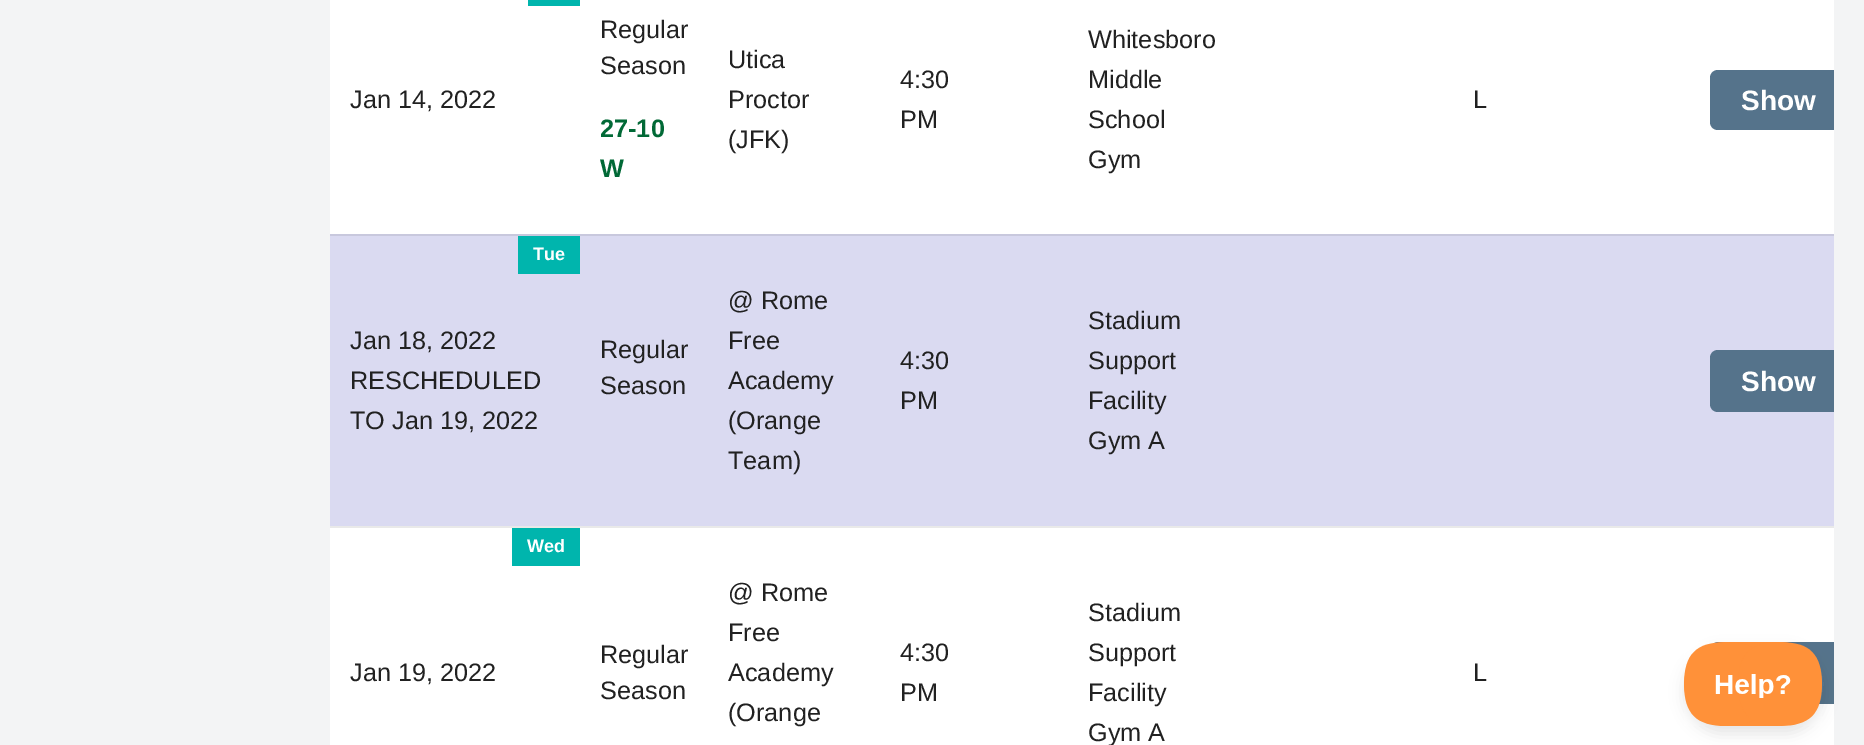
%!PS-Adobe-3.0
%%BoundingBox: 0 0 1864 745
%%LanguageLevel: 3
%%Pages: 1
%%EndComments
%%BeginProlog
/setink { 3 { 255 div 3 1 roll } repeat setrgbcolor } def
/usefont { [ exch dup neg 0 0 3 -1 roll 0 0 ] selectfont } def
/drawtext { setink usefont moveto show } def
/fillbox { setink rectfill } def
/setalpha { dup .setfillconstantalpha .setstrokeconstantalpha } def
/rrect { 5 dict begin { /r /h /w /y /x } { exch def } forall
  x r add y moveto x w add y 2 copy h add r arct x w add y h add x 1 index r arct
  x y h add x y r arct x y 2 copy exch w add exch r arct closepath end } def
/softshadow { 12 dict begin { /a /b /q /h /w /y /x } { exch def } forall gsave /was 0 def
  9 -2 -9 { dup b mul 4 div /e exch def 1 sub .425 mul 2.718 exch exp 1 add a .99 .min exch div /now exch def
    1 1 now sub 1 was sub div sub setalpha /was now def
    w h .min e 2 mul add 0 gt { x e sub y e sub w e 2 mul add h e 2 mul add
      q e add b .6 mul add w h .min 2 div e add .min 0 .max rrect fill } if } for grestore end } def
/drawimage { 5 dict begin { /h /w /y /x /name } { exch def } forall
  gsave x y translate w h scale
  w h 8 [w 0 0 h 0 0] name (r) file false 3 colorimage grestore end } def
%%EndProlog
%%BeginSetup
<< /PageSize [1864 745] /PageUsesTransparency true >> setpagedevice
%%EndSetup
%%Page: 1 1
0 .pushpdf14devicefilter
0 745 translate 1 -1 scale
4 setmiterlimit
0 0 1864 745 243 244 245 fillbox
330 0 1504 745 255 255 255 fillbox
528 0 52 6 0 181 173 fillbox
(Jan 14, 2022) 350 108 /LiberationSans-Regular 25.25 33 33 33 drawtext
(Regular) 600 38 /LiberationSans-Regular 25.25 33 33 33 drawtext
(Season) 600 74 /LiberationSans-Regular 25.25 33 33 33 drawtext
(27-10) 600 137 /LiberationSans-Bold 25.25 1 105 54 drawtext
(W) 600 177 /LiberationSans-Bold 25.25 1 105 54 drawtext
(Utica) 728 68 /LiberationSans-Regular 25.25 33 33 33 drawtext
(Proctor) 728 108 /LiberationSans-Regular 25.25 33 33 33 drawtext
(\(JFK\)) 728 148 /LiberationSans-Regular 25.25 33 33 33 drawtext
(4:30) 900 88 /LiberationSans-Regular 25.25 33 33 33 drawtext
(PM) 900 128 /LiberationSans-Regular 25.25 33 33 33 drawtext
(Whitesboro) 1088 48 /LiberationSans-Regular 25.25 33 33 33 drawtext
(Middle) 1088 88 /LiberationSans-Regular 25.25 33 33 33 drawtext
(School) 1088 128 /LiberationSans-Regular 25.25 33 33 33 drawtext
(Gym) 1088 168 /LiberationSans-Regular 25.25 33 33 33 drawtext
(L) 1473 108 /LiberationSans-Regular 25.25 33 33 33 drawtext
85 115 139 setink
1718 70 moveto 1834 70 lineto 1834 130 lineto 1718 130 lineto 1713.5 130 1710 126.5 1710 122 curveto 1710 78 lineto 1710 73.5 1713.5 70 1718 70 curveto closepath fill
(Show) 1741 110 /LiberationSans-Bold 28 255 255 255 drawtext
330 236 1504 290 218 218 241 fillbox
330 234 1504 2 200 200 221 fillbox
518 236 62 38 0 181 173 fillbox
(Tue) 533 260 /LiberationSans-Bold 18 255 255 255 drawtext
(Jan 18, 2022) 350 349 /LiberationSans-Regular 25.25 33 33 33 drawtext
(RESCHEDULED) 350 389 /LiberationSans-Regular 25.25 33 33 33 drawtext
(TO Jan 19, 2022) 350 429 /LiberationSans-Regular 25.25 33 33 33 drawtext
(Regular) 600 358 /LiberationSans-Regular 25.25 33 33 33 drawtext
(Season) 600 394 /LiberationSans-Regular 25.25 33 33 33 drawtext
(@ Rome) 728 309 /LiberationSans-Regular 25.25 33 33 33 drawtext
(Free) 728 349 /LiberationSans-Regular 25.25 33 33 33 drawtext
(Academy) 728 389 /LiberationSans-Regular 25.25 33 33 33 drawtext
(\(Orange) 728 429 /LiberationSans-Regular 25.25 33 33 33 drawtext
(Team\)) 728 469 /LiberationSans-Regular 25.25 33 33 33 drawtext
(4:30) 900 369 /LiberationSans-Regular 25.25 33 33 33 drawtext
(PM) 900 409 /LiberationSans-Regular 25.25 33 33 33 drawtext
(Stadium) 1088 329 /LiberationSans-Regular 25.25 33 33 33 drawtext
(Support) 1088 369 /LiberationSans-Regular 25.25 33 33 33 drawtext
(Facility) 1088 409 /LiberationSans-Regular 25.25 33 33 33 drawtext
(Gym A) 1088 449 /LiberationSans-Regular 25.25 33 33 33 drawtext
85 115 139 setink
1718 350 moveto 1834 350 lineto 1834 412 lineto 1718 412 lineto 1713.5 412 1710 408.5 1710 404 curveto 1710 358 lineto 1710 353.5 1713.5 350 1718 350 curveto closepath fill
(Show) 1741 391 /LiberationSans-Bold 28 255 255 255 drawtext
330 526 1504 2 233 233 233 fillbox
512 528 68 38 0 181 173 fillbox
(Wed) 527 552 /LiberationSans-Bold 18 255 255 255 drawtext
(Jan 19, 2022) 350 681 /LiberationSans-Regular 25.25 33 33 33 drawtext
(Regular) 600 663 /LiberationSans-Regular 25.25 33 33 33 drawtext
(Season) 600 699 /LiberationSans-Regular 25.25 33 33 33 drawtext
(@ Rome) 728 601 /LiberationSans-Regular 25.25 33 33 33 drawtext
(Free) 728 641 /LiberationSans-Regular 25.25 33 33 33 drawtext
(Academy) 728 681 /LiberationSans-Regular 25.25 33 33 33 drawtext
(\(Orange) 728 721 /LiberationSans-Regular 25.25 33 33 33 drawtext
(4:30) 900 661 /LiberationSans-Regular 25.25 33 33 33 drawtext
(PM) 900 701 /LiberationSans-Regular 25.25 33 33 33 drawtext
(Stadium) 1088 621 /LiberationSans-Regular 25.25 33 33 33 drawtext
(Support) 1088 661 /LiberationSans-Regular 25.25 33 33 33 drawtext
(Facility) 1088 701 /LiberationSans-Regular 25.25 33 33 33 drawtext
(Gym A) 1088 741 /LiberationSans-Regular 25.25 33 33 33 drawtext
(L) 1473 681 /LiberationSans-Regular 25.25 33 33 33 drawtext
85 115 139 setink
1718 642 moveto 1834 642 lineto 1834 704 lineto 1718 704 lineto 1713.5 704 1710 700.5 1710 696 curveto 1710 650 lineto 1710 645.5 1713.5 642 1718 642 curveto closepath fill
gsave
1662 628 moveto 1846 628 lineto 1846 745 lineto 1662 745 lineto closepath 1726 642 moveto 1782 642 lineto 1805 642 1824 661 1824 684 curveto 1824 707 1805 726 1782 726 curveto 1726 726 lineto 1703 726 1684 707 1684 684 curveto 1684 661 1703 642 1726 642 curveto closepath eoclip newpath
0 0 0 setink
1684 650 140 84 42 7 0.1 softshadow
grestore
(assets/img1.rgb) 1684 642 138 84 drawimage
.poppdf14devicefilter showpage
%%EOF
